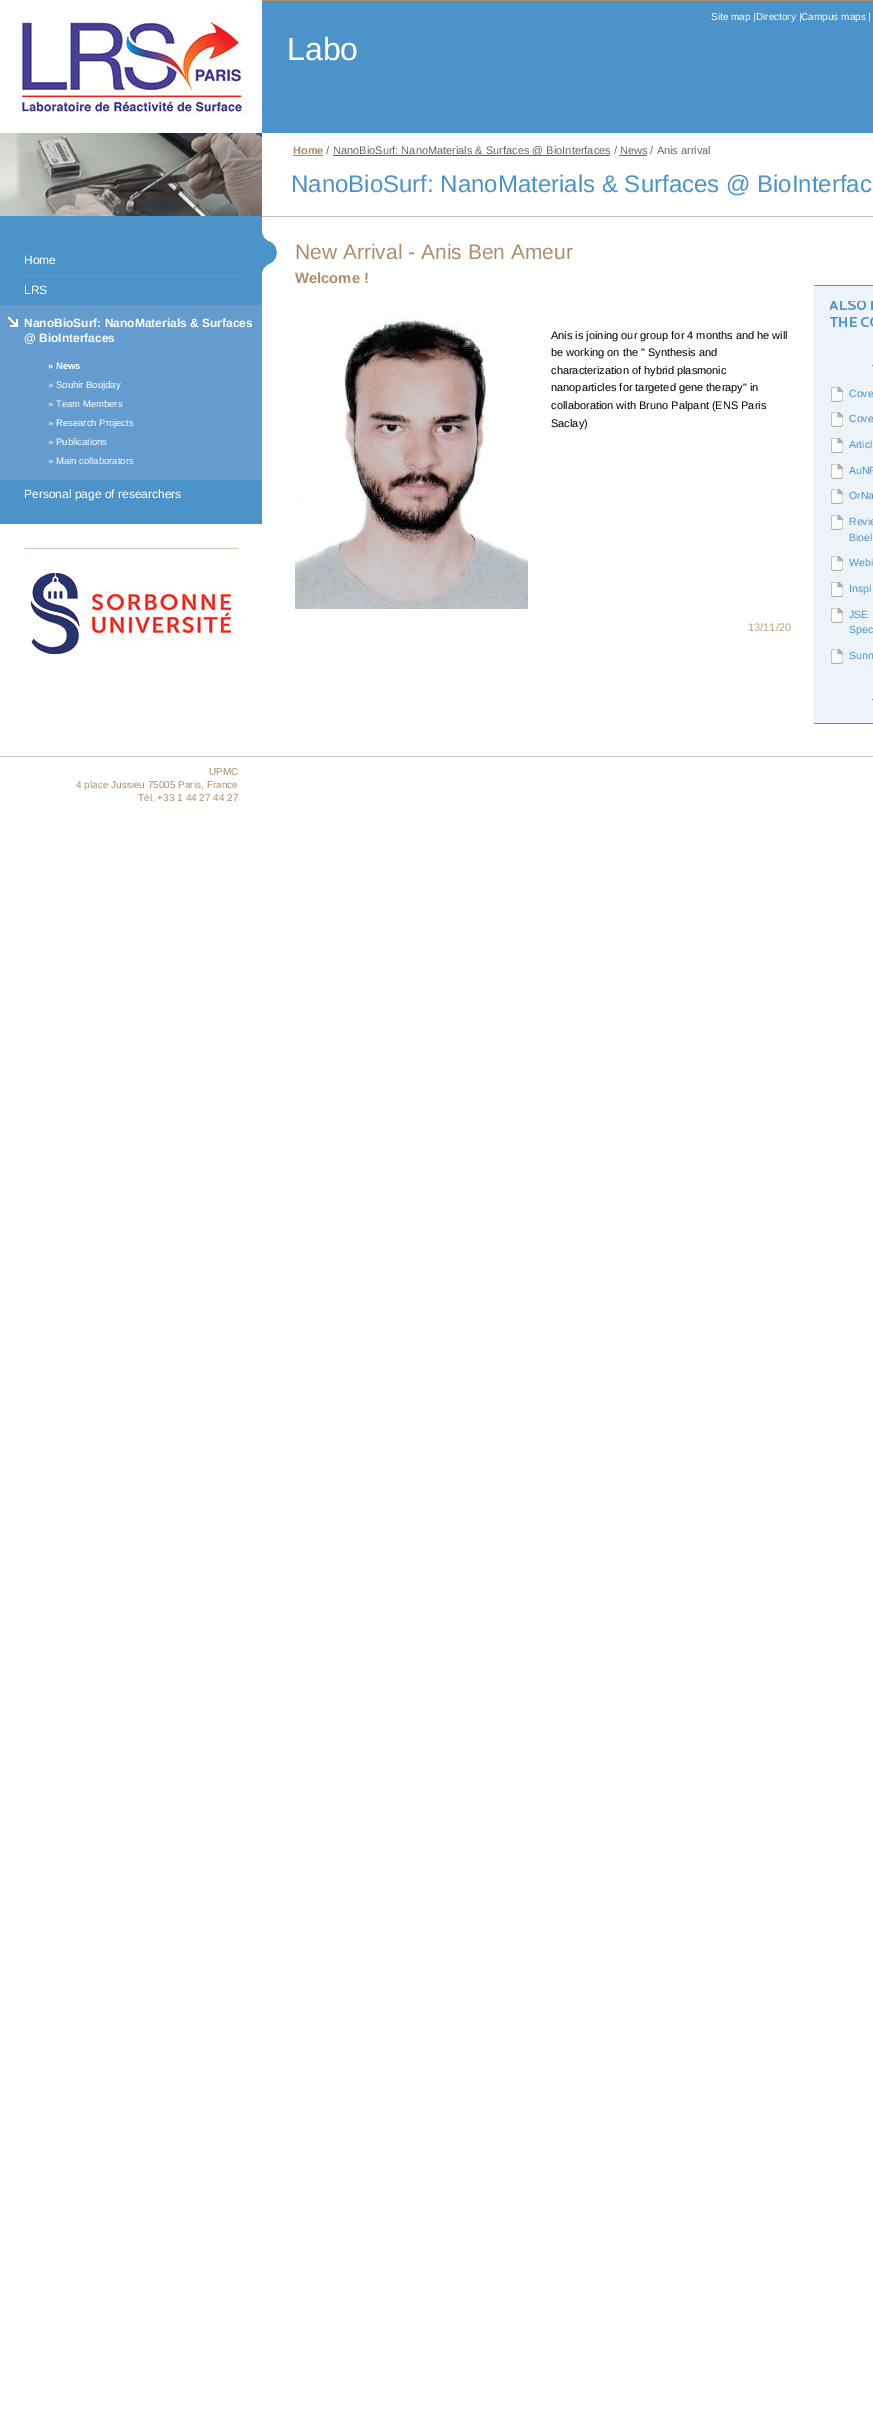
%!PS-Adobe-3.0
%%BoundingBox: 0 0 873 2433
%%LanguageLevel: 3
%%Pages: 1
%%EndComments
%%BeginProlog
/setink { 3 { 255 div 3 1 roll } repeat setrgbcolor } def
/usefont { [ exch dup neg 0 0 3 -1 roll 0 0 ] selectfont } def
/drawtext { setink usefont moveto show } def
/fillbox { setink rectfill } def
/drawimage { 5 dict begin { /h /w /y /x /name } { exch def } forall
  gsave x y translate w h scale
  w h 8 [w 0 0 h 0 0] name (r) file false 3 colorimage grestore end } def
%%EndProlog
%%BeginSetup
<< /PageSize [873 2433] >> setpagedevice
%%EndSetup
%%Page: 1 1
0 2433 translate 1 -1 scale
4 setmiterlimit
0 0 873 2433 255 255 255 fillbox
(assets/img1.rgb) 16 17 232 96 drawimage
(assets/img2.rgb) 0 133 262 83 drawimage
0 216 262 308 76 147 202 fillbox
(Home) 24 264 /LiberationSans-Regular 12 255 255 255 drawtext
24 275 214 1 100 156 207 fillbox
(LRS) 24 294 /LiberationSans-Regular 12 255 255 255 drawtext
0 305 262 175 100 156 207 fillbox
(assets/img3.rgb) 8 317 10 10 drawimage
(NanoBioSurf: NanoMaterials & Surfaces) 24 327 /LiberationSans-Bold 12 255 255 255 drawtext
(@ BioInterfaces) 24 342 /LiberationSans-Bold 12 255 255 255 drawtext
(» News) 48 369 /LiberationSans-Bold 9.5 255 255 255 drawtext
(» Souhir Boujday) 48 388 /LiberationSans-Regular 9.5 255 255 255 drawtext
(» Team Members) 48 407 /LiberationSans-Regular 9.5 255 255 255 drawtext
(» Research Projects) 48 426 /LiberationSans-Regular 9.5 255 255 255 drawtext
(» Publications) 48 445 /LiberationSans-Regular 9.5 255 255 255 drawtext
(» Main collaborators) 48 464 /LiberationSans-Regular 9.5 255 255 255 drawtext
(Personal page of researchers) 24 498 /LiberationSans-Regular 12 255 255 255 drawtext
24 548 214 1 215 196 176 fillbox
(assets/img4.rgb) 31 573 200 81 drawimage
262 0 611 1 173 143 107 fillbox
262 1 611 132 76 147 202 fillbox
(Site map |Directory |Campus maps |) 711 20 /LiberationSans-Regular 10 255 255 255 drawtext
(Labo) 287 60 /LiberationSans-Regular 32 255 255 255 drawtext
262 216 611 1 191 191 191 fillbox
(Home) 293 154 /LiberationSans-Bold 11 173 143 107 drawtext
293 155 30 1 174 143 108 fillbox
(/) 326 154 /LiberationSans-Regular 11 102 102 102 drawtext
333 155 277 1 102 102 102 fillbox
(NanoBioSurf: NanoMaterials & Surfaces @ BioInterfaces / News / Anis arrival) 333 154 /LiberationSans-Regular 11 102 102 102 drawtext
619 155 28 1 102 102 102 fillbox
(NanoBioSurf: NanoMaterials & Surfaces @ BioInterfac) 291 192 /LiberationSans-Regular 24 76 147 202 drawtext
(assets/img5.rgb) 262 233 15 39 drawimage
(New Arrival - Anis Ben Ameur) 295 259 /LiberationSans-Regular 21 173 143 107 drawtext
(Welcome !) 295 283 /LiberationSans-Bold 14.75 173 143 107 drawtext
(assets/img6.rgb) 295 317 233 292 drawimage
(Anis is joining our group for 4 months and he will) 551 339 /LiberationSans-Regular 11 0 0 0 drawtext
(be working on the " Synthesis and) 551 356 /LiberationSans-Regular 11 0 0 0 drawtext
(characterization of hybrid plasmonic) 551 374 /LiberationSans-Regular 11 0 0 0 drawtext
(nanoparticles for targeted gene therapy" in) 551 391 /LiberationSans-Regular 11 0 0 0 drawtext
(collaboration with Bruno Palpant \(ENS Paris) 551 409 /LiberationSans-Regular 11 0 0 0 drawtext
(Saclay\)) 551 427 /LiberationSans-Regular 11 0 0 0 drawtext
(13/11/20) 748 631 /LiberationSans-Regular 11 184 164 127 drawtext
814 286 59 437 237 243 248 fillbox
814 285 59 1 76 147 202 fillbox
814 723 59 1 76 147 202 fillbox
(assets/img7.rgb) 830 301 43 26 drawimage
872 365 1 1 76 147 202 fillbox
(assets/img8.rgb) 831 387 12 15 drawimage
(Cove) 849 397 /LiberationSans-Regular 10.5 76 147 202 drawtext
(assets/img8.rgb) 831 412 12 15 drawimage
(Cove) 849 422 /LiberationSans-Regular 10.5 76 147 202 drawtext
(assets/img8.rgb) 831 438 12 15 drawimage
(Articl) 849 448 /LiberationSans-Regular 10.5 76 147 202 drawtext
(assets/img8.rgb) 831 464 12 15 drawimage
(AuNR) 849 474 /LiberationSans-Regular 10.5 76 147 202 drawtext
(assets/img8.rgb) 831 489 12 15 drawimage
(OrNa) 849 499 /LiberationSans-Regular 10.5 76 147 202 drawtext
(assets/img8.rgb) 831 515 12 15 drawimage
(Revie) 849 525 /LiberationSans-Regular 10.5 76 147 202 drawtext
(Bioel) 849 541 /LiberationSans-Regular 10.5 76 147 202 drawtext
(assets/img8.rgb) 831 556 12 15 drawimage
(Webi) 849 566 /LiberationSans-Regular 10.5 76 147 202 drawtext
(assets/img8.rgb) 831 582 12 15 drawimage
(Inspl) 849 592 /LiberationSans-Regular 10.5 76 147 202 drawtext
(assets/img8.rgb) 831 608 12 15 drawimage
(JSE) 849 618 /LiberationSans-Regular 10.5 76 147 202 drawtext
(Spec) 849 633 /LiberationSans-Regular 10.5 76 147 202 drawtext
(assets/img8.rgb) 831 649 12 15 drawimage
(Sunn) 849 659 /LiberationSans-Regular 10.5 76 147 202 drawtext
872 699 1 1 76 147 202 fillbox
0 756 873 1 191 191 191 fillbox
(UPMC) 209 775 /LiberationSans-Regular 10 173 143 107 drawtext
(4 place Jussieu 75005 Paris, France) 76 788 /LiberationSans-Regular 10 173 143 107 drawtext
(Tél. +33 1 44 27 44 27) 138 801 /LiberationSans-Regular 10 173 143 107 drawtext
showpage
%%EOF
